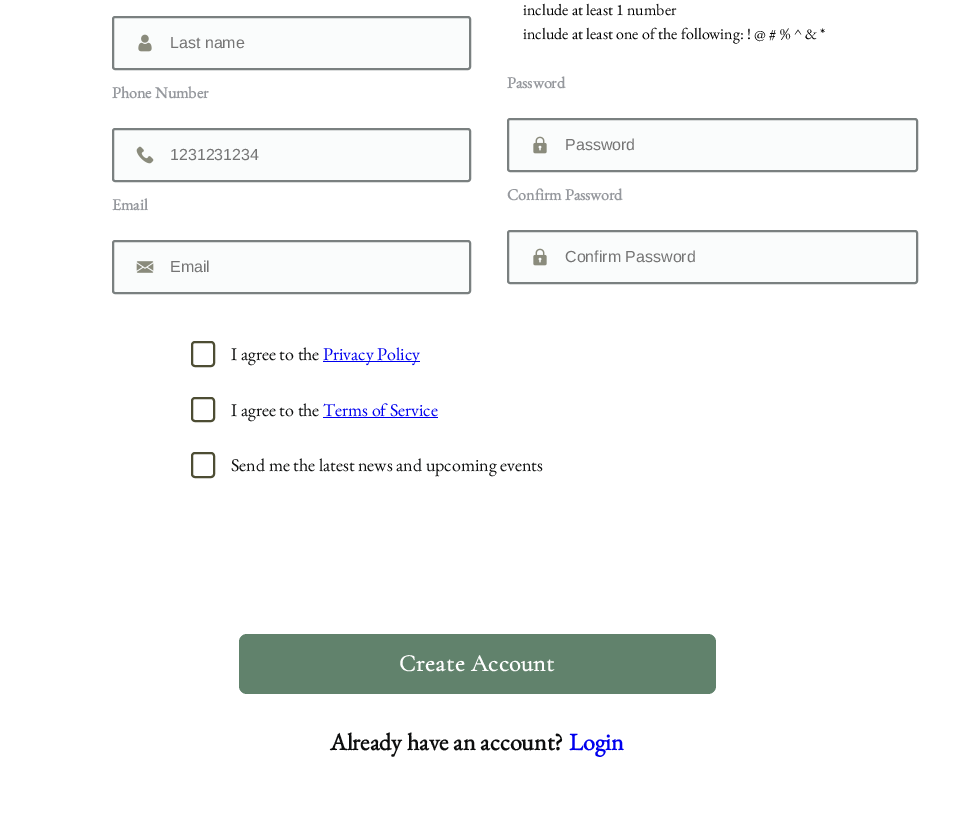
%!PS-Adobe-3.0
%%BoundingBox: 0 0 954 814
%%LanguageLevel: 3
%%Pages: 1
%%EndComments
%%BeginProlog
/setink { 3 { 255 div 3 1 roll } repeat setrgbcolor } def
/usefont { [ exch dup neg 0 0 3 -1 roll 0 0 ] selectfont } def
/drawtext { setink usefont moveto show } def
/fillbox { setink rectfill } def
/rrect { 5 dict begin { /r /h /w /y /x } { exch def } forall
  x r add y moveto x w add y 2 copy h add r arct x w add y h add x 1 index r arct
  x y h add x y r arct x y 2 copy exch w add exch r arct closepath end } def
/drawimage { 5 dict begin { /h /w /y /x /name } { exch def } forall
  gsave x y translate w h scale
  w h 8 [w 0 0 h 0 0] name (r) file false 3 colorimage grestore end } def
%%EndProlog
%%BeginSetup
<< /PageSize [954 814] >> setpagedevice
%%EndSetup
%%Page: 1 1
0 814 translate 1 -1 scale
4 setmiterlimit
0 0 954 814 255 255 255 fillbox
250 252 252 setink
113 17 357 52 2 rrect gsave fill grestore
122 128 128 setink
2 setlinewidth
stroke
(assets/img1.rgb) 138 34 14 18 drawimage
(Last name) 170 48 /LiberationSans-Regular 16 117 117 117 drawtext
(Phone Number) 112 98 /EBGaramond-Bold 16 149 152 157 drawtext
250 252 252 setink
113 129 357 52 2 rrect gsave fill grestore
122 128 128 setink
stroke
(assets/img2.rgb) 136 146 18 18 drawimage
(1231231234) 170 160 /LiberationSans-Regular 16 117 117 117 drawtext
(Email) 112 210 /EBGaramond-Bold 16 149 152 157 drawtext
250 252 252 setink
113 241 357 52 2 rrect gsave fill grestore
122 128 128 setink
stroke
(assets/img3.rgb) 136 261 18 12 drawimage
(Email) 170 272 /LiberationSans-Regular 16 117 117 117 drawtext
(include at least 1 number) 523 15 /EBGaramond-Regular 16 0 0 0 drawtext
(include at least one of the following: ! @ # % ^ & *) 523 39 /EBGaramond-Regular 16 0 0 0 drawtext
(Password) 507 88 /EBGaramond-Bold 16 149 152 157 drawtext
250 252 252 setink
508 119 409 52 2 rrect gsave fill grestore
122 128 128 setink
stroke
(assets/img4.rgb) 533 136 14 18 drawimage
(Password) 565 150 /LiberationSans-Regular 16 117 117 117 drawtext
(Confirm Password) 507 200 /EBGaramond-Bold 16 149 152 157 drawtext
250 252 252 setink
508 231 409 52 2 rrect gsave fill grestore
122 128 128 setink
stroke
(assets/img4.rgb) 533 248 14 18 drawimage
(Confirm Password) 565 262 /LiberationSans-Regular 16 117 117 117 drawtext
77 77 51 setink
192 342 22 24 3 rrect stroke
(I agree to the) 231 360 /EBGaramond-Regular 18 13 14 14 drawtext
323 361 97 1 0 0 238 fillbox
(Privacy Policy) 323 360 /EBGaramond-Regular 18 0 0 238 drawtext
77 77 51 setink
192 398 22 23 3 rrect stroke
(I agree to the) 231 416 /EBGaramond-Regular 18 13 14 14 drawtext
(Terms of Service) 323 416 /EBGaramond-Regular 18 0 0 238 drawtext
323 417 115 1 0 0 238 fillbox
77 77 51 setink
192 453 22 24 3 rrect stroke
(Send me the latest news and upcoming events) 231 471 /EBGaramond-Regular 18 13 14 14 drawtext
97 130 108 setink
239 634 477 60 8 rrect fill
/CormorantGaramond-Bold 24 usefont
255 255 255 setink
399 671 moveto 0.5 0 (Create Account) ashow
(Already have an account?) 330 750 /EBGaramond-Bold 24 13 14 14 drawtext
(Login) 569 750 /EBGaramond-Bold 24 0 0 238 drawtext
showpage
%%EOF
